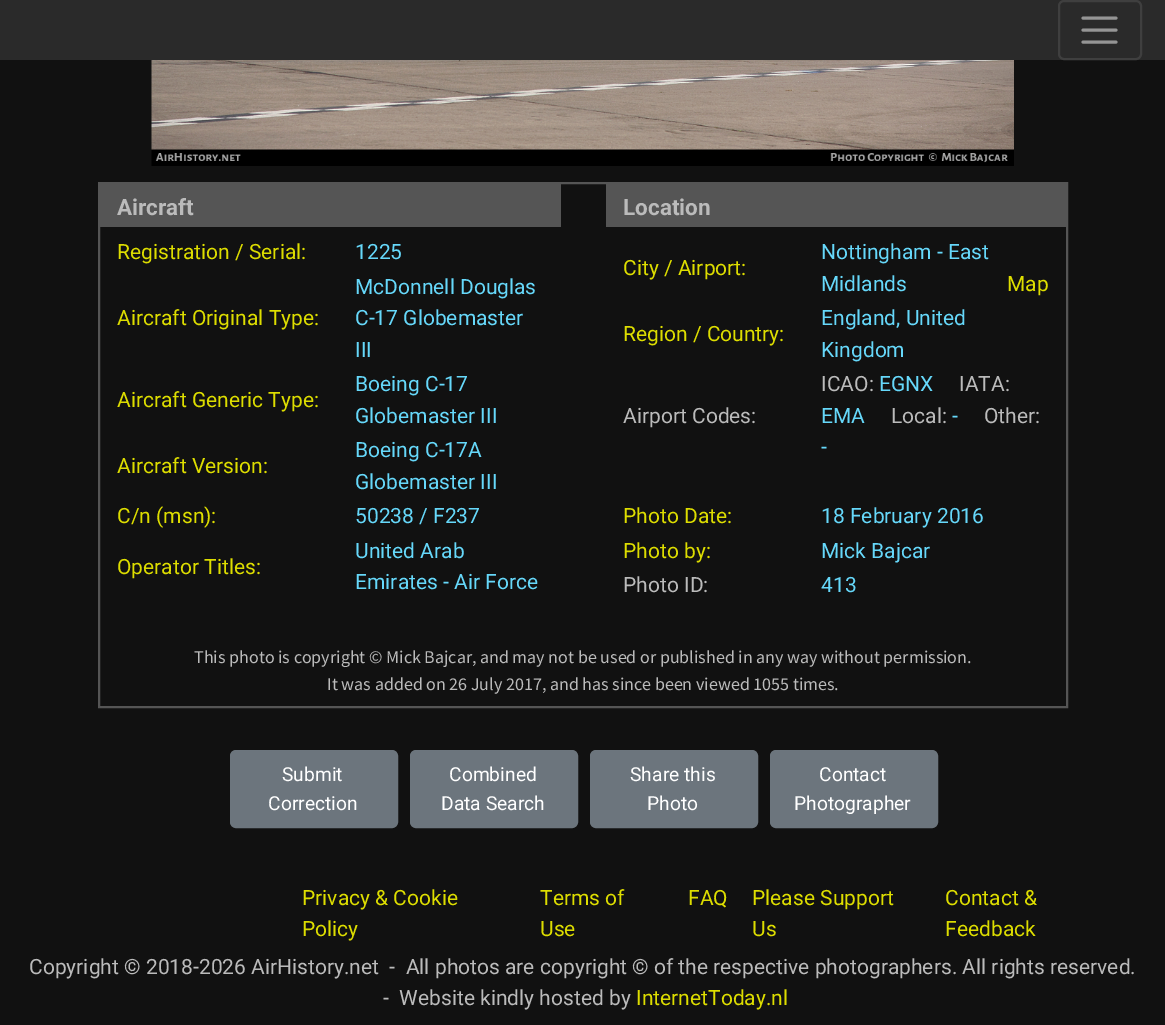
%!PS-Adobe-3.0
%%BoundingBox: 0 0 1165 1025
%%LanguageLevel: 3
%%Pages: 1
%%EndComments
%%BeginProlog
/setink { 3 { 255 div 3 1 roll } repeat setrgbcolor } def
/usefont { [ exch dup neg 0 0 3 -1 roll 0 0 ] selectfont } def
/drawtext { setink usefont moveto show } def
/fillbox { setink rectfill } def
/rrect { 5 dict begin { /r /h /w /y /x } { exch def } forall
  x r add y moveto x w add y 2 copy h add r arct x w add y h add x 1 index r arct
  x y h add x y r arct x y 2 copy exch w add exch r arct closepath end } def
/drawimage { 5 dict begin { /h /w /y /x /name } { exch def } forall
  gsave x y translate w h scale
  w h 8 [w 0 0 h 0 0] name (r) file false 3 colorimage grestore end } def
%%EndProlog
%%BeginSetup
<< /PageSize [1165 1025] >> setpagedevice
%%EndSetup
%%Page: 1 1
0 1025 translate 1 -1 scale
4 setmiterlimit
0 0 1165 1025 17 17 17 fillbox
0 0 1165 60 42 42 42 fillbox
63 63 63 setink
2 setlinewidth
1059 1 82 58 5 rrect stroke
149 149 149 setink
3 setlinewidth
1 setlinecap
1083 18 moveto 1116 18 lineto 1083 30 moveto 1116 30 lineto 1083 42 moveto 1116 42 lineto stroke
(assets/img1.rgb) 151 60 863 106 drawimage
85 85 85 setink
2 setlinewidth
0 setlinecap
99 183 968 524 rectstroke
100 184 461 43 85 85 85 fillbox
(Aircraft) 117 215 /Roboto-Bold 22.5 187 187 187 drawtext
(Registration / Serial:) 117 259 /Roboto-Regular 21 221 221 0 drawtext
(1225) 355 259 /Roboto-Regular 21 102 216 250 drawtext
(Aircraft Original Type:) 117 325 /Roboto-Regular 21 221 221 0 drawtext
(McDonnell Douglas) 355 294 /Roboto-Regular 21 102 216 250 drawtext
(C-17 Globemaster) 355 325 /Roboto-Regular 21 102 216 250 drawtext
(III) 355 357 /Roboto-Regular 21 102 216 250 drawtext
(Aircraft Generic Type:) 117 407 /Roboto-Regular 21 221 221 0 drawtext
(Boeing C-17) 355 391 /Roboto-Regular 21 102 216 250 drawtext
(Globemaster III) 355 423 /Roboto-Regular 21 102 216 250 drawtext
(Aircraft Version:) 117 473 /Roboto-Regular 21 221 221 0 drawtext
(Boeing C-17A) 355 457 /Roboto-Regular 21 102 216 250 drawtext
(Globemaster III) 355 489 /Roboto-Regular 21 102 216 250 drawtext
(C/n \(msn\):) 117 523 /Roboto-Regular 21 221 221 0 drawtext
(50238 / F237) 355 523 /Roboto-Regular 21 102 216 250 drawtext
(Operator Titles:) 117 574 /Roboto-Regular 21 221 221 0 drawtext
(United Arab) 355 558 /Roboto-Regular 21 102 216 250 drawtext
(Emirates - Air Force) 355 589 /Roboto-Regular 21 102 216 250 drawtext
606 184 460 43 85 85 85 fillbox
(Location) 623 215 /Roboto-Bold 22.5 187 187 187 drawtext
(City / Airport:) 623 275 /Roboto-Regular 21 221 221 0 drawtext
(Nottingham - East) 821 259 /Roboto-Regular 21 102 216 250 drawtext
(Midlands) 821 291 /Roboto-Regular 21 102 216 250 drawtext
(Map) 1007 291 /Roboto-Regular 21 221 221 0 drawtext
(Region / Country:) 623 341 /Roboto-Regular 21 221 221 0 drawtext
(England, United) 821 325 /Roboto-Regular 21 102 216 250 drawtext
(Kingdom) 821 357 /Roboto-Regular 21 102 216 250 drawtext
(Airport Codes:) 623 423 /Roboto-Regular 21 187 187 187 drawtext
(ICAO:) 821 391 /Roboto-Regular 21 187 187 187 drawtext
(EGNX) 879 391 /Roboto-Regular 21 102 216 250 drawtext
(IATA:) 959 391 /Roboto-Regular 21 187 187 187 drawtext
(EMA) 821 423 /Roboto-Regular 21 102 216 250 drawtext
(Local:) 891 423 /Roboto-Regular 21 187 187 187 drawtext
(-) 952 423 /Roboto-Regular 21 102 216 250 drawtext
(Other:) 984 423 /Roboto-Regular 21 187 187 187 drawtext
(-) 821 454 /Roboto-Regular 21 102 216 250 drawtext
(Photo Date:) 623 523 /Roboto-Regular 21 221 221 0 drawtext
(18 February 2016) 821 523 /Roboto-Regular 21 102 216 250 drawtext
(Photo by:) 623 558 /Roboto-Regular 21 221 221 0 drawtext
(Mick Bajcar) 821 558 /Roboto-Regular 21 102 216 250 drawtext
(Photo ID:) 623 592 /Roboto-Regular 21 187 187 187 drawtext
(413) 821 592 /Roboto-Regular 21 102 216 250 drawtext
(This photo is copyright © Mick Bajcar, and may not be used or published in any way without permission.) 194 663 /SourceSansPro-Regular 18 187 187 187 drawtext
(It was added on 26 July 2017, and has since been viewed 1055 times.) 327 690 /SourceSansPro-Regular 18 187 187 187 drawtext
108 117 125 setink
231 751 166 76 5 rrect gsave fill grestore
stroke
(Submit) 282 781 /Roboto-Regular 19.25 255 255 255 drawtext
(Correction) 268 810 /Roboto-Regular 19.25 255 255 255 drawtext
108 117 125 setink
411 751 166 76 5 rrect gsave fill grestore
stroke
(Combined) 449 781 /Roboto-Regular 19.25 255 255 255 drawtext
(Data Search) 441 810 /Roboto-Regular 19.25 255 255 255 drawtext
108 117 125 setink
591 751 166 76 5 rrect gsave fill grestore
stroke
(Share this) 630 781 /Roboto-Regular 19.25 255 255 255 drawtext
(Photo) 647 810 /Roboto-Regular 19.25 255 255 255 drawtext
108 117 125 setink
771 751 166 76 5 rrect gsave fill grestore
stroke
(Contact) 819 781 /Roboto-Regular 19.25 255 255 255 drawtext
(Photographer) 794 810 /Roboto-Regular 19.25 255 255 255 drawtext
(Privacy & Cookie) 302 905 /Roboto-Regular 21 221 221 0 drawtext
(Policy) 302 936 /Roboto-Regular 21 221 221 0 drawtext
(Terms of) 540 905 /Roboto-Regular 21 221 221 0 drawtext
(Use) 540 936 /Roboto-Regular 21 221 221 0 drawtext
(FAQ) 688 905 /Roboto-Regular 21 221 221 0 drawtext
(Please Support) 752 905 /Roboto-Regular 21 221 221 0 drawtext
(Us) 752 936 /Roboto-Regular 21 221 221 0 drawtext
(Contact &) 945 905 /Roboto-Regular 21 221 221 0 drawtext
(Feedback) 945 936 /Roboto-Regular 21 221 221 0 drawtext
(Copyright © 2018-2026 AirHistory.net  -  All photos are copyright © of the respective photographers. All rights reserved.) 29 974 /Roboto-Regular 21 187 187 187 drawtext
(-  Website kindly hosted by) 383 1005 /Roboto-Regular 21 187 187 187 drawtext
(InternetToday.nl) 636 1005 /Roboto-Regular 21 221 221 0 drawtext
showpage
%%EOF
